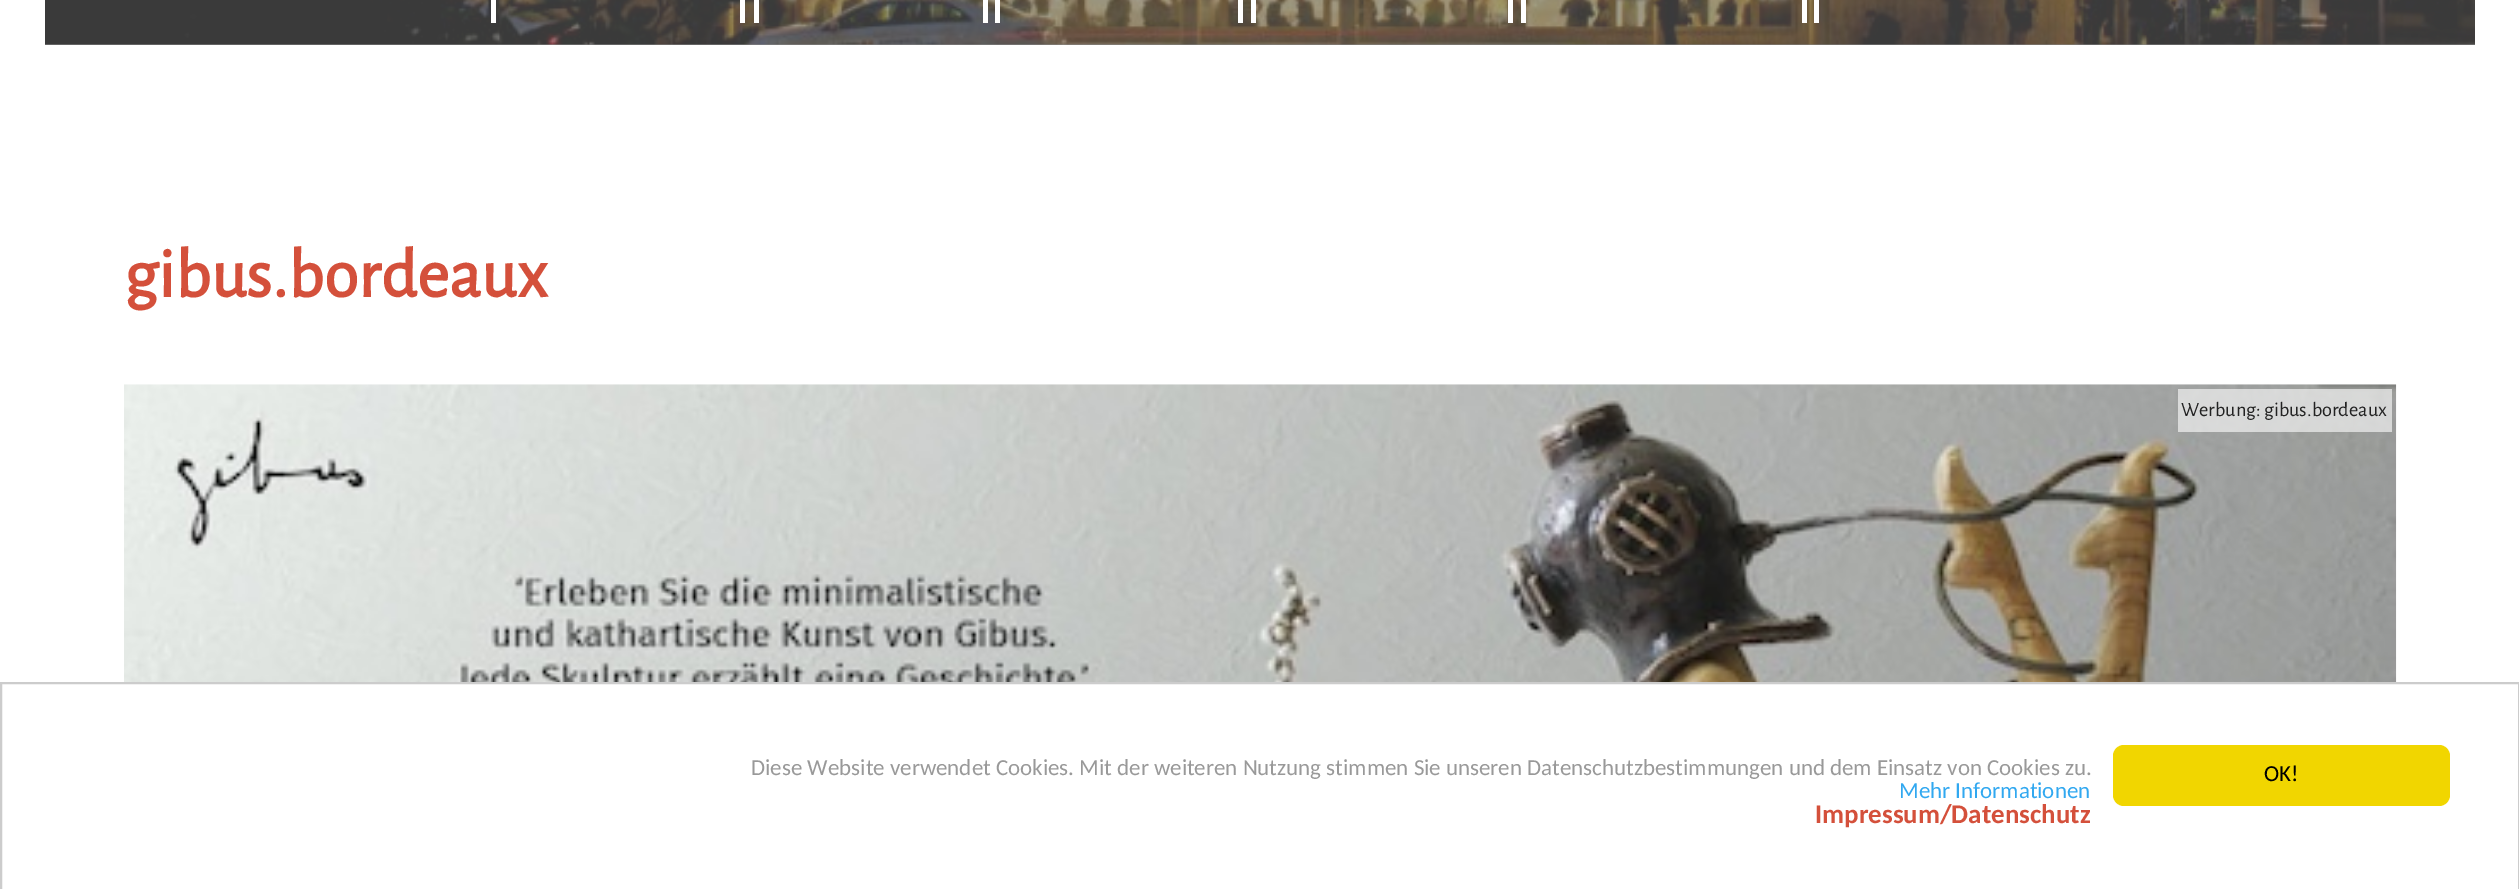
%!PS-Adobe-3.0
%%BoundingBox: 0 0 2519 889
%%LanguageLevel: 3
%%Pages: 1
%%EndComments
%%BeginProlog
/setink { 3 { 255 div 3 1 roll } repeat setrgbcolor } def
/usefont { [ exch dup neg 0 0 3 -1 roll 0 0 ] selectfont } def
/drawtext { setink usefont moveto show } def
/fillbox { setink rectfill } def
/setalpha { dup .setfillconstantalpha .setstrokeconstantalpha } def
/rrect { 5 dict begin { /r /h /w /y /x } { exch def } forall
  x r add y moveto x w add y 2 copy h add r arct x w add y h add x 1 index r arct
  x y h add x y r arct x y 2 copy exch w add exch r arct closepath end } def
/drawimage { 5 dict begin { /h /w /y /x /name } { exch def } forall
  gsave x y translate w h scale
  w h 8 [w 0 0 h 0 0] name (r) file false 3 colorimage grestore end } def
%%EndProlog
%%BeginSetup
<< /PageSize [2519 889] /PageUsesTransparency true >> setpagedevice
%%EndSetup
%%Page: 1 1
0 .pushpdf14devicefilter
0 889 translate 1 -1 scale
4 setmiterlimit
0 0 2519 889 255 255 255 fillbox
45 44 2430 1 140 140 140 fillbox
(assets/img1.rgb) 45 0 2430 45 drawimage
491 0 5 23 255 255 255 fillbox
740 0 5 23 255 255 255 fillbox
754 0 5 23 255 255 255 fillbox
983 0 5 23 255 255 255 fillbox
995 0 5 23 255 255 255 fillbox
1238 0 5 23 255 255 255 fillbox
1251 0 5 23 255 255 255 fillbox
1508 0 5 23 255 255 255 fillbox
1521 0 5 23 255 255 255 fillbox
1802 0 5 23 255 255 255 fillbox
1814 0 5 23 255 255 255 fillbox
(gibus.bordeaux) 124 297 /AlegreyaSans-Bold 69.75 212 80 59 drawtext
(assets/img2.rgb) 124 384 2273 298 drawimage
0.6 setalpha
2178 389 214 43 255 255 255 fillbox
1 setalpha
(Werbung: gibus.bordeaux) 2181 416 /AlegreyaSans-Regular 20.25 34 34 34 drawtext
204 204 204 setink
2 setlinewidth
1 683 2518 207 rectstroke
(Diese Website verwendet Cookies. Mit der weiteren Nutzung stimmen Sie unseren Datenschutzbestimmungen und dem Einsatz von Cookies zu.) 751 775 /Carlito-Regular 22.95 153 153 153 drawtext
(Mehr Informationen) 1899 798 /Carlito-Regular 22.95 49 168 240 drawtext
(Impressum/Datenschutz) 1815 823 /Carlito-Bold 27 212 80 59 drawtext
241 214 0 setink
2113 745 337 61 11 rrect fill
(OK!) 2264 781 /Carlito-Regular 22.95 0 0 0 drawtext
.poppdf14devicefilter showpage
%%EOF
